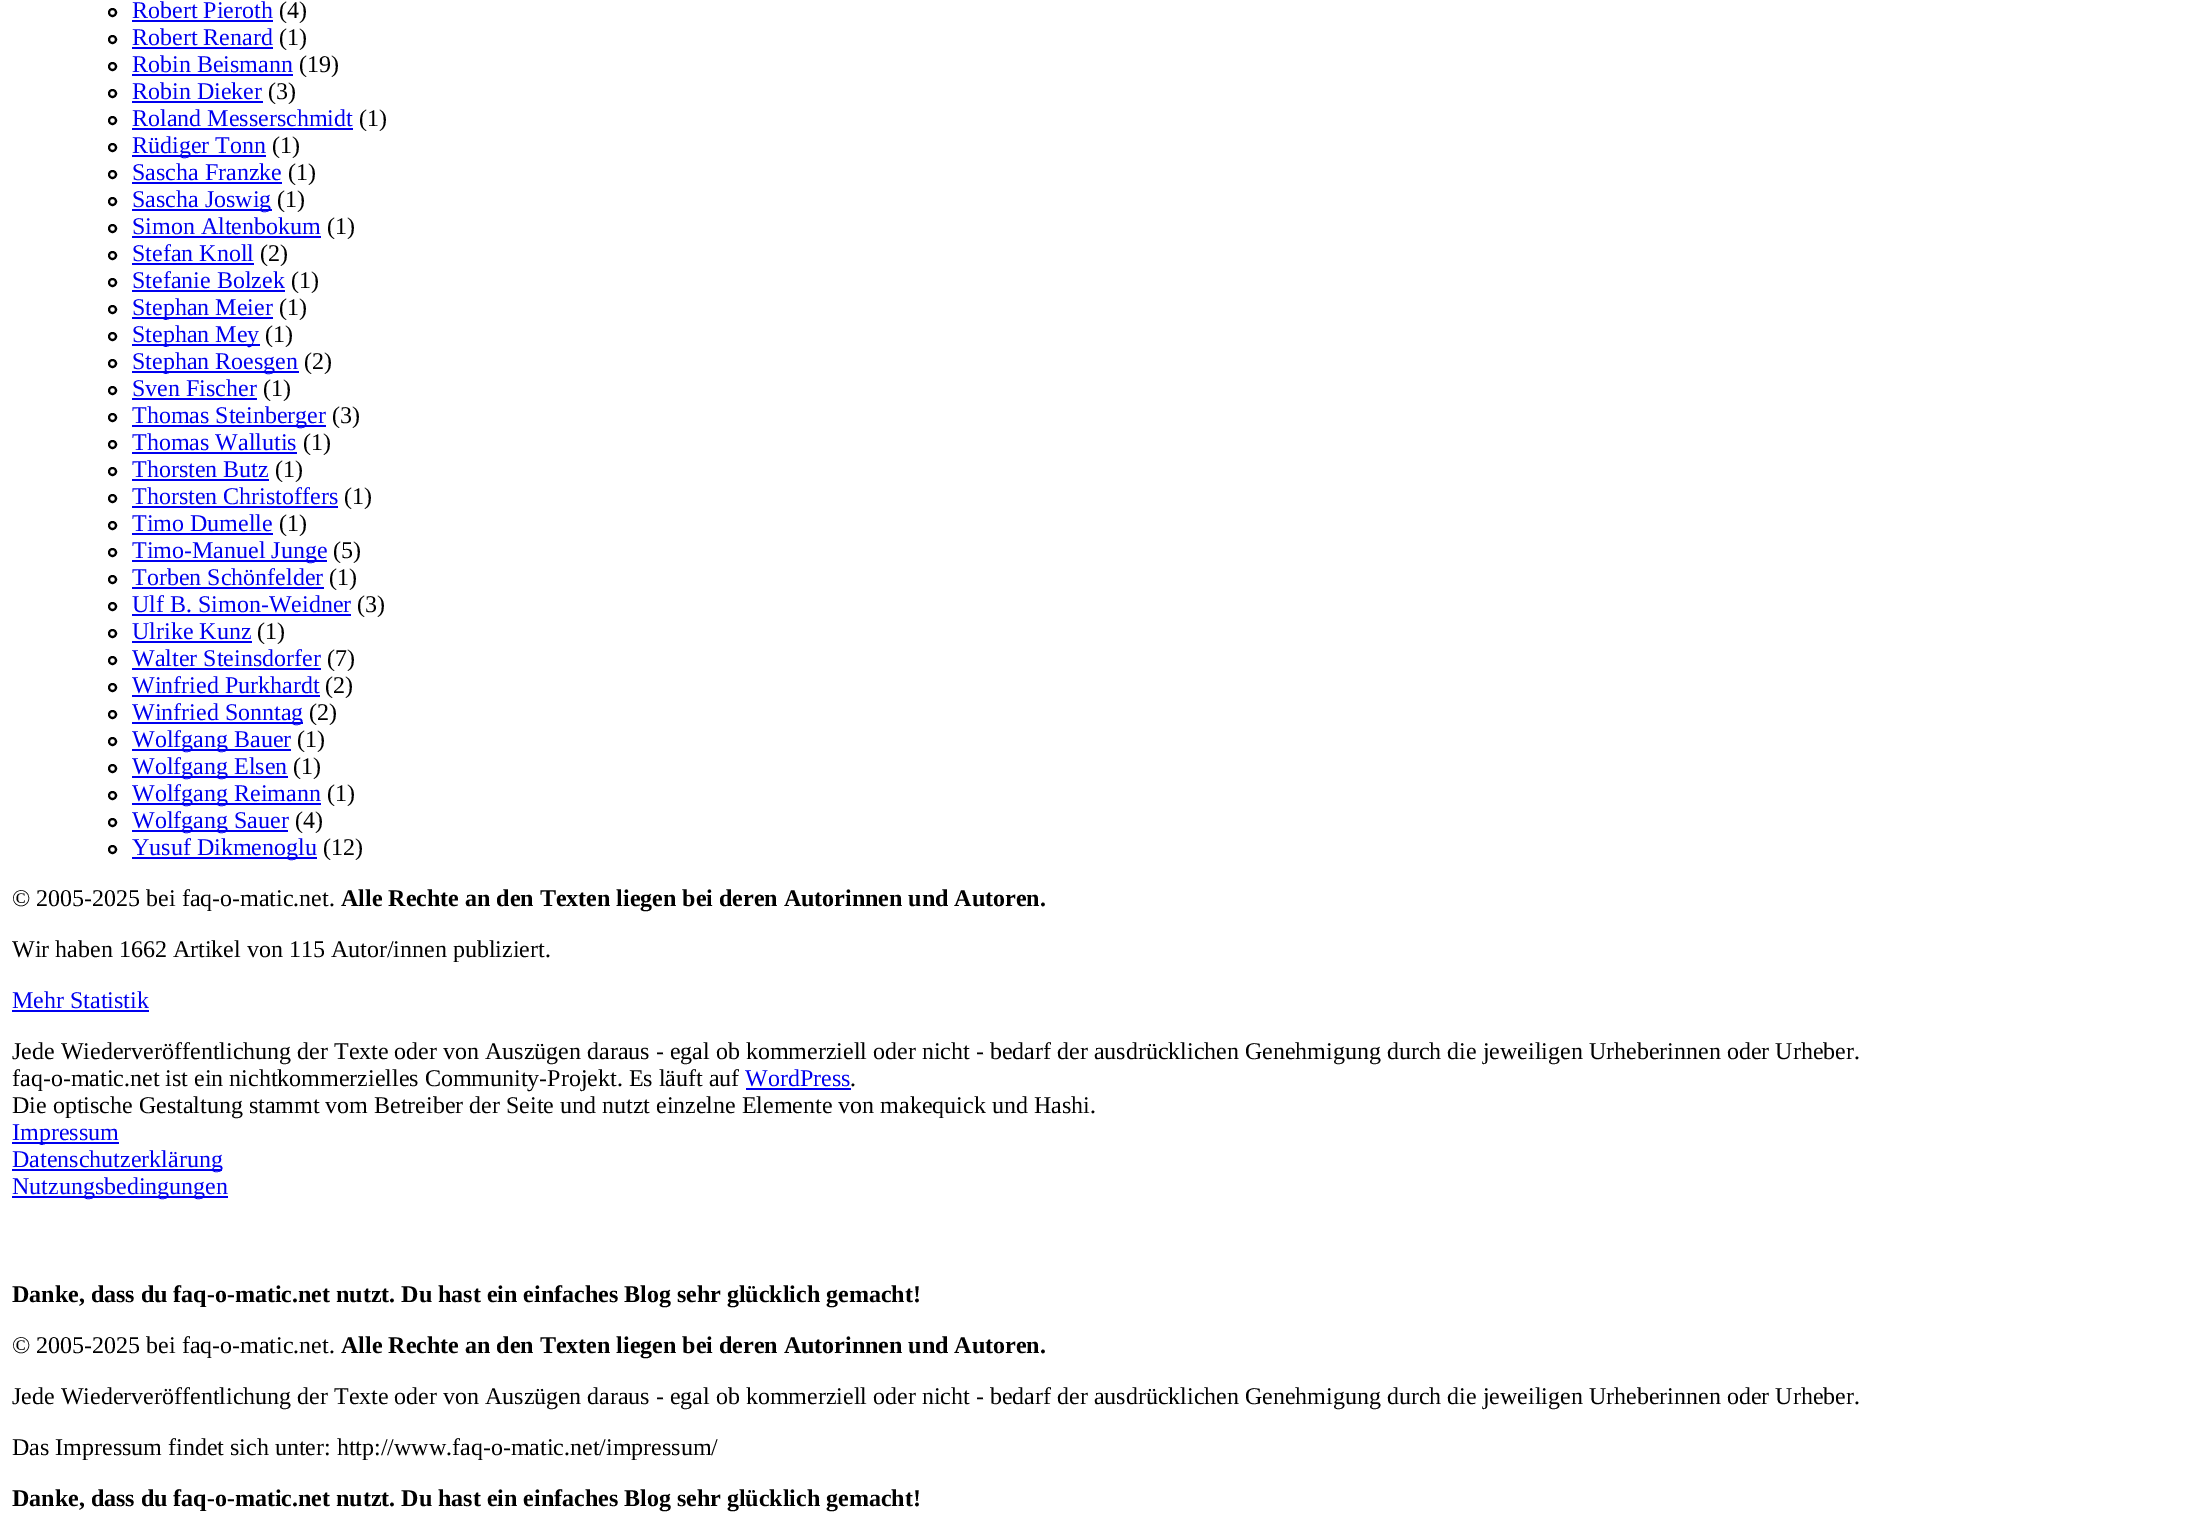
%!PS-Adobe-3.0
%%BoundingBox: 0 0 2205 1536
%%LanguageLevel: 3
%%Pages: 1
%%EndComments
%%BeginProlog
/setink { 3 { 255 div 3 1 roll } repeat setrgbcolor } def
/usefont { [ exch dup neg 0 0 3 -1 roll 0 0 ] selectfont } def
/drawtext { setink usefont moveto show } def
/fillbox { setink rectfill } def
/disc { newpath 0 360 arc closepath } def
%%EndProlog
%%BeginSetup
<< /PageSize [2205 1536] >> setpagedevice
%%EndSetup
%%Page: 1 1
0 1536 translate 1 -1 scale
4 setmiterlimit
0 0 2205 1536 255 255 255 fillbox
0 0 0 setink
2 setlinewidth
112.5 12.5 3.5 disc stroke
(Robert Pieroth) 132 18 /LiberationSerif-Regular 24 0 0 238 drawtext
132 20 141 2 0 0 238 fillbox
(\(4\)) 279 18 /LiberationSerif-Regular 24 0 0 0 drawtext
112.5 39.5 3.5 disc stroke
(Robert Renard) 132 45 /LiberationSerif-Regular 24 0 0 238 drawtext
132 47 141 2 0 0 238 fillbox
(\(1\)) 279 45 /LiberationSerif-Regular 24 0 0 0 drawtext
112.5 66.5 3.5 disc stroke
(Robin Beismann) 132 72 /LiberationSerif-Regular 24 0 0 238 drawtext
132 74 161 2 0 0 238 fillbox
(\(19\)) 299 72 /LiberationSerif-Regular 24 0 0 0 drawtext
112.5 93.5 3.5 disc stroke
(Robin Dieker) 132 99 /LiberationSerif-Regular 24 0 0 238 drawtext
132 101 131 2 0 0 238 fillbox
(\(3\)) 268 99 /LiberationSerif-Regular 24 0 0 0 drawtext
112.5 120.5 3.5 disc stroke
(Roland Messerschmidt) 132 126 /LiberationSerif-Regular 24 0 0 238 drawtext
132 128 221 2 0 0 238 fillbox
(\(1\)) 359 126 /LiberationSerif-Regular 24 0 0 0 drawtext
112.5 147.5 3.5 disc stroke
132 155 134 2 0 0 238 fillbox
(Rüdiger Tonn) 132 153 /LiberationSerif-Regular 24 0 0 238 drawtext
(\(1\)) 272 153 /LiberationSerif-Regular 24 0 0 0 drawtext
112.5 174.5 3.5 disc stroke
(Sascha Franzke) 132 180 /LiberationSerif-Regular 24 0 0 238 drawtext
132 182 150 2 0 0 238 fillbox
(\(1\)) 288 180 /LiberationSerif-Regular 24 0 0 0 drawtext
112.5 201.5 3.5 disc stroke
132 209 140 2 0 0 238 fillbox
(Sascha Joswig) 132 207 /LiberationSerif-Regular 24 0 0 238 drawtext
(\(1\)) 277 207 /LiberationSerif-Regular 24 0 0 0 drawtext
112.5 228.5 3.5 disc stroke
(Simon Altenbokum) 132 234 /LiberationSerif-Regular 24 0 0 238 drawtext
132 236 189 2 0 0 238 fillbox
(\(1\)) 327 234 /LiberationSerif-Regular 24 0 0 0 drawtext
112.5 255.5 3.5 disc stroke
(Stefan Knoll) 132 261 /LiberationSerif-Regular 24 0 0 238 drawtext
132 263 122 2 0 0 238 fillbox
(\(2\)) 260 261 /LiberationSerif-Regular 24 0 0 0 drawtext
112.5 282.5 3.5 disc stroke
(Stefanie Bolzek) 132 288 /LiberationSerif-Regular 24 0 0 238 drawtext
132 290 153 2 0 0 238 fillbox
(\(1\)) 291 288 /LiberationSerif-Regular 24 0 0 0 drawtext
112.5 309.5 3.5 disc stroke
132 317 141 2 0 0 238 fillbox
(Stephan Meier) 132 315 /LiberationSerif-Regular 24 0 0 238 drawtext
(\(1\)) 279 315 /LiberationSerif-Regular 24 0 0 0 drawtext
112.5 336.5 3.5 disc stroke
132 344 128 2 0 0 238 fillbox
(Stephan Mey) 132 342 /LiberationSerif-Regular 24 0 0 238 drawtext
(\(1\)) 265 342 /LiberationSerif-Regular 24 0 0 0 drawtext
112.5 363.5 3.5 disc stroke
132 371 167 2 0 0 238 fillbox
(Stephan Roesgen) 132 369 /LiberationSerif-Regular 24 0 0 238 drawtext
(\(2\)) 304 369 /LiberationSerif-Regular 24 0 0 0 drawtext
112.5 390.5 3.5 disc stroke
(Sven Fischer) 132 396 /LiberationSerif-Regular 24 0 0 238 drawtext
132 398 125 2 0 0 238 fillbox
(\(1\)) 263 396 /LiberationSerif-Regular 24 0 0 0 drawtext
112.5 417.5 3.5 disc stroke
132 425 194 2 0 0 238 fillbox
(Thomas Steinberger) 132 423 /LiberationSerif-Regular 24 0 0 238 drawtext
(\(3\)) 332 423 /LiberationSerif-Regular 24 0 0 0 drawtext
112.5 444.5 3.5 disc stroke
(Thomas Wallutis) 132 450 /LiberationSerif-Regular 24 0 0 238 drawtext
132 452 165 2 0 0 238 fillbox
(\(1\)) 303 450 /LiberationSerif-Regular 24 0 0 0 drawtext
112.5 471.5 3.5 disc stroke
(Thorsten Butz) 132 477 /LiberationSerif-Regular 24 0 0 238 drawtext
132 479 137 2 0 0 238 fillbox
(\(1\)) 275 477 /LiberationSerif-Regular 24 0 0 0 drawtext
112.5 498.5 3.5 disc stroke
(Thorsten Christoffers) 132 504 /LiberationSerif-Regular 24 0 0 238 drawtext
132 506 206 2 0 0 238 fillbox
(\(1\)) 344 504 /LiberationSerif-Regular 24 0 0 0 drawtext
112.5 525.5 3.5 disc stroke
(Timo Dumelle) 132 531 /LiberationSerif-Regular 24 0 0 238 drawtext
132 533 141 2 0 0 238 fillbox
(\(1\)) 279 531 /LiberationSerif-Regular 24 0 0 0 drawtext
112.5 552.5 3.5 disc stroke
132 560 195 2 0 0 238 fillbox
(Timo-Manuel Junge) 132 558 /LiberationSerif-Regular 24 0 0 238 drawtext
(\(5\)) 333 558 /LiberationSerif-Regular 24 0 0 0 drawtext
112.5 579.5 3.5 disc stroke
(Torben Schönfelder) 132 585 /LiberationSerif-Regular 24 0 0 238 drawtext
132 587 192 2 0 0 238 fillbox
(\(1\)) 329 585 /LiberationSerif-Regular 24 0 0 0 drawtext
112.5 606.5 3.5 disc stroke
(Ulf B. Simon-Weidner) 132 612 /LiberationSerif-Regular 24 0 0 238 drawtext
132 614 219 2 0 0 238 fillbox
(\(3\)) 357 612 /LiberationSerif-Regular 24 0 0 0 drawtext
112.5 633.5 3.5 disc stroke
(Ulrike Kunz) 132 639 /LiberationSerif-Regular 24 0 0 238 drawtext
132 641 120 2 0 0 238 fillbox
(\(1\)) 257 639 /LiberationSerif-Regular 24 0 0 0 drawtext
112.5 660.5 3.5 disc stroke
(Walter Steinsdorfer) 132 666 /LiberationSerif-Regular 24 0 0 238 drawtext
132 668 189 2 0 0 238 fillbox
(\(7\)) 327 666 /LiberationSerif-Regular 24 0 0 0 drawtext
112.5 687.5 3.5 disc stroke
(Winfried Purkhardt) 132 693 /LiberationSerif-Regular 24 0 0 238 drawtext
132 695 188 2 0 0 238 fillbox
(\(2\)) 325 693 /LiberationSerif-Regular 24 0 0 0 drawtext
112.5 714.5 3.5 disc stroke
132 722 171 2 0 0 238 fillbox
(Winfried Sonntag) 132 720 /LiberationSerif-Regular 24 0 0 238 drawtext
(\(2\)) 309 720 /LiberationSerif-Regular 24 0 0 0 drawtext
112.5 741.5 3.5 disc stroke
132 749 159 2 0 0 238 fillbox
(Wolfgang Bauer) 132 747 /LiberationSerif-Regular 24 0 0 238 drawtext
(\(1\)) 297 747 /LiberationSerif-Regular 24 0 0 0 drawtext
112.5 768.5 3.5 disc stroke
132 776 156 2 0 0 238 fillbox
(Wolfgang Elsen) 132 774 /LiberationSerif-Regular 24 0 0 238 drawtext
(\(1\)) 293 774 /LiberationSerif-Regular 24 0 0 0 drawtext
112.5 795.5 3.5 disc stroke
132 803 189 2 0 0 238 fillbox
(Wolfgang Reimann) 132 801 /LiberationSerif-Regular 24 0 0 238 drawtext
(\(1\)) 327 801 /LiberationSerif-Regular 24 0 0 0 drawtext
112.5 822.5 3.5 disc stroke
132 830 156 2 0 0 238 fillbox
(Wolfgang Sauer) 132 828 /LiberationSerif-Regular 24 0 0 238 drawtext
(\(4\)) 295 828 /LiberationSerif-Regular 24 0 0 0 drawtext
112.5 849.5 3.5 disc stroke
132 857 185 2 0 0 238 fillbox
(Yusuf Dikmenoglu) 132 855 /LiberationSerif-Regular 24 0 0 238 drawtext
(\(12\)) 323 855 /LiberationSerif-Regular 24 0 0 0 drawtext
(© 2005-2025 bei faq-o-matic.net.) 12 906 /LiberationSerif-Regular 24 0 0 0 drawtext
(Alle Rechte an den Texten liegen bei deren Autorinnen und Autoren.) 341 906 /LiberationSerif-Bold 24 0 0 0 drawtext
(Wir haben 1662 Artikel von 115 Autor/innen publiziert.) 12 957 /LiberationSerif-Regular 24 0 0 0 drawtext
(Mehr Statistik) 12 1008 /LiberationSerif-Regular 24 0 0 238 drawtext
12 1010 137 2 0 0 238 fillbox
(Jede Wiederveröffentlichung der Texte oder von Auszügen daraus - egal ob kommerziell oder nicht - bedarf der ausdrücklichen Genehmigung durch die jeweiligen Urheberinnen oder Urheber.) 12 1059 /LiberationSerif-Regular 24 0 0 0 drawtext
(faq-o-matic.net ist ein nichtkommerzielles Community-Projekt. Es läuft auf) 12 1086 /LiberationSerif-Regular 24 0 0 0 drawtext
(WordPress) 745 1086 /LiberationSerif-Regular 24 0 0 238 drawtext
746 1088 105 2 0 0 238 fillbox
(.) 850 1086 /LiberationSerif-Regular 24 0 0 0 drawtext
(Die optische Gestaltung stammt vom Betreiber der Seite und nutzt einzelne Elemente von makequick und Hashi.) 12 1113 /LiberationSerif-Regular 24 0 0 0 drawtext
12 1142 107 2 0 0 238 fillbox
(Impressum) 12 1140 /LiberationSerif-Regular 24 0 0 238 drawtext
12 1169 210 2 0 0 238 fillbox
(Datenschutzerklärung) 12 1167 /LiberationSerif-Regular 24 0 0 238 drawtext
12 1196 216 2 0 0 238 fillbox
(Nutzungsbedingungen) 12 1194 /LiberationSerif-Regular 24 0 0 238 drawtext
(Danke, dass du faq-o-matic.net nutzt. Du hast ein einfaches Blog sehr glücklich gemacht!) 12 1302 /LiberationSerif-Bold 24 0 0 0 drawtext
(© 2005-2025 bei faq-o-matic.net.) 12 1353 /LiberationSerif-Regular 24 0 0 0 drawtext
(Alle Rechte an den Texten liegen bei deren Autorinnen und Autoren.) 341 1353 /LiberationSerif-Bold 24 0 0 0 drawtext
(Jede Wiederveröffentlichung der Texte oder von Auszügen daraus - egal ob kommerziell oder nicht - bedarf der ausdrücklichen Genehmigung durch die jeweiligen Urheberinnen oder Urheber.) 12 1404 /LiberationSerif-Regular 24 0 0 0 drawtext
(Das Impressum findet sich unter: http://www.faq-o-matic.net/impressum/) 12 1455 /LiberationSerif-Regular 24 0 0 0 drawtext
(Danke, dass du faq-o-matic.net nutzt. Du hast ein einfaches Blog sehr glücklich gemacht!) 12 1506 /LiberationSerif-Bold 24 0 0 0 drawtext
showpage
%%EOF
